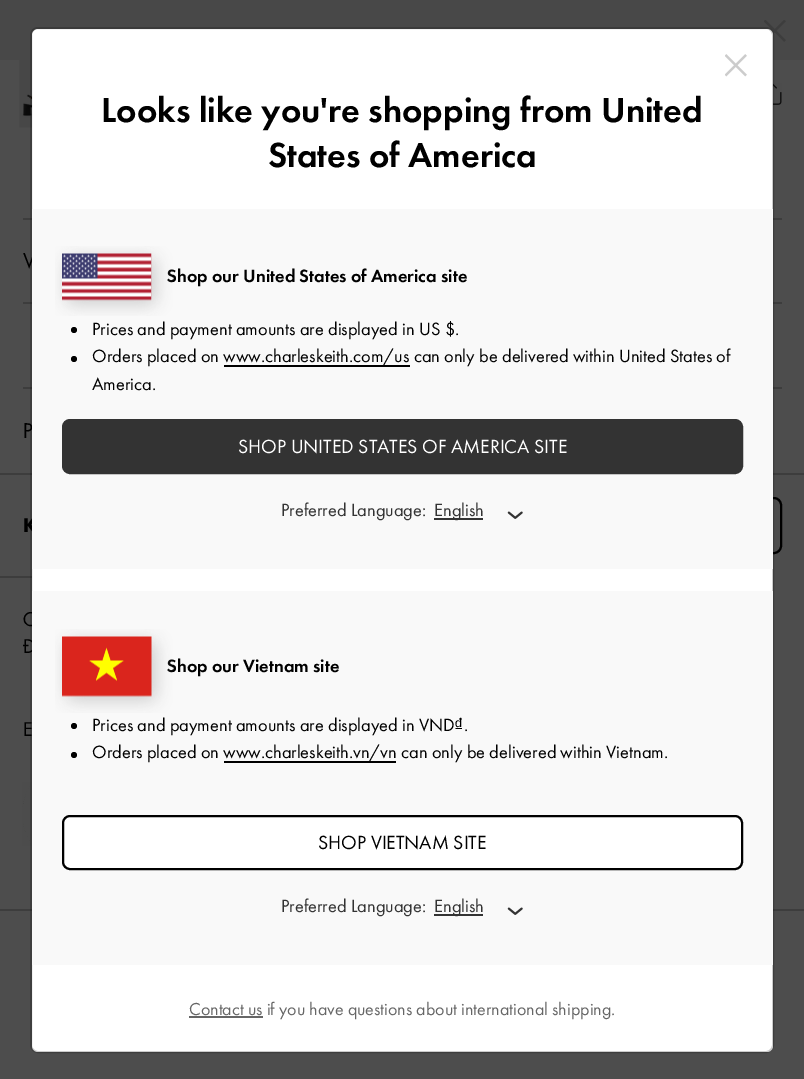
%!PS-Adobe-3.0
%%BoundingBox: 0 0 804 1079
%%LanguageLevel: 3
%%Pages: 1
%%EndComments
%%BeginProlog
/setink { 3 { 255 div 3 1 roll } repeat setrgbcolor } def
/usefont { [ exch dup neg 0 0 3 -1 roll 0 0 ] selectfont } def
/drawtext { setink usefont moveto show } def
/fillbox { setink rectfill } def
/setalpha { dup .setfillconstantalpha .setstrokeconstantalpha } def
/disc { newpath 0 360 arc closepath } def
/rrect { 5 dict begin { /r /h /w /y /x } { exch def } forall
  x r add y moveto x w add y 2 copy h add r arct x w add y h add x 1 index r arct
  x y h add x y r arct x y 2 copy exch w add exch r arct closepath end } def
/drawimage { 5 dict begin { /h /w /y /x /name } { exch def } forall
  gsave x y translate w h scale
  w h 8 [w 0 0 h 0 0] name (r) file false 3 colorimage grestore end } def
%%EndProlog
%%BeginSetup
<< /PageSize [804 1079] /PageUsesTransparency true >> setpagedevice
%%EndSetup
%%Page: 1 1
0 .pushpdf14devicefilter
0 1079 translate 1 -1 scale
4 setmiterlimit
0 0 804 1079 77 77 77 fillbox
0 0 804 60 72 72 72 fillbox
(assets/img1.rgb) 764 20 22 22 drawimage
(assets/img2.rgb) 19 60 13 68 drawimage
(assets/img3.rgb) 773 83 9 22 drawimage
23 218 759 2 61 61 61 fillbox
/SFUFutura-Regular 19.75 usefont
0 0 0 setink
23 268 moveto 1 0 (V) ashow
23 302 759 2 61 61 61 fillbox
23 387 759 2 61 61 61 fillbox
0 0 0 setink
23 438 moveto 1 0 (P) ashow
0 473 804 2 61 61 61 fillbox
(K) 23 532 /SFUFutura-Bold 18.4 0 0 0 drawtext
2 setlinewidth
649 498 132 55 7 rrect stroke
0 576 32 2 61 61 61 fillbox
(C) 23 626 /SFUFutura-Regular 18.4 0 0 0 drawtext
(Đ) 23 653 /SFUFutura-Regular 18.4 0 0 0 drawtext
(E) 23 736 /SFUFutura-Regular 18.4 0 0 0 drawtext
(assets/img4.rgb) 22 782 10 64 drawimage
0 909 804 2 61 61 61 fillbox
255 255 255 setink
32 29 741 1023 6 rrect fill
0.2 setalpha
0 0 0 setink
31 28 742 1024 7 rrect stroke
1 setalpha
(assets/img5.rgb) 725 54 22 23 drawimage
(Looks like you're shopping from United) 101 122 /FuturaPT-Medium 36 0 0 0 drawtext
(States of America) 268 167 /FuturaPT-Medium 36 0 0 0 drawtext
32 209 741 360 249 249 249 fillbox
(Shop our United States of America site) 167 282 /FuturaPT-Medium 18.4 0 0 0 drawtext
(assets/img6.rgb) 55 246 118 70 drawimage
74 330 3 disc fill
(Prices and payment amounts are displayed in US $.) 92 335 /FuturaPT-Regular 18.4 0 0 0 drawtext
74 359 3 disc fill
(Orders placed on) 92 362 /FuturaPT-Regular 18.4 0 0 0 drawtext
224 365 186 2 0 0 0 fillbox
(www.charleskeith.com/us can only be delivered within United States of) 223 362 /FuturaPT-Regular 18.4 0 0 0 drawtext
(America.) 92 390 /FuturaPT-Regular 18.4 0 0 0 drawtext
51 51 51 setink
63 420 679 53 7 rrect gsave fill grestore
stroke
(SHOP UNITED STATES OF AMERICA SITE) 238 453 /FuturaPT-Regular 19.75 255 255 255 drawtext
(Preferred Language:) 281 516 /FuturaPT-Regular 18.4 51 51 51 drawtext
(assets/img7.rgb) 507 511 16 8 drawimage
434 518 49 2 51 51 51 fillbox
(English) 434 516 /FuturaPT-Regular 18.4 51 51 51 drawtext
32 591 741 374 249 249 249 fillbox
(Shop our Vietnam site) 167 672 /FuturaPT-Medium 18.4 0 0 0 drawtext
(assets/img8.rgb) 55 629 118 84 drawimage
74 726 3 disc fill
(Prices and payment amounts are displayed in VND) 92 731 /FuturaPT-Regular 18.4 0 0 0 drawtext
(₫) 454 731 /LiberationSans-Regular 18.4 0 0 0 drawtext
(.) 464 731 /FuturaPT-Regular 18.4 0 0 0 drawtext
74 755 3 disc fill
(Orders placed on) 92 758 /FuturaPT-Regular 18.4 0 0 0 drawtext
224 761 172 2 0 0 0 fillbox
(www.charleskeith.vn/vn can only be delivered within Vietnam.) 223 758 /FuturaPT-Regular 18.4 0 0 0 drawtext
255 255 255 setink
63 816 679 53 7 rrect gsave fill grestore
0 0 0 setink
stroke
(SHOP VIETNAM SITE) 318 849 /FuturaPT-Regular 19.75 0 0 0 drawtext
(Preferred Language:) 281 912 /FuturaPT-Regular 18.4 51 51 51 drawtext
(assets/img7.rgb) 507 907 16 8 drawimage
434 914 49 2 51 51 51 fillbox
(English) 434 912 /FuturaPT-Regular 18.4 51 51 51 drawtext
189 1016 74 2 102 102 102 fillbox
(Contact us if you have questions about international shipping.) 189 1015 /FuturaPT-Regular 18 102 102 102 drawtext
.poppdf14devicefilter showpage
%%EOF
